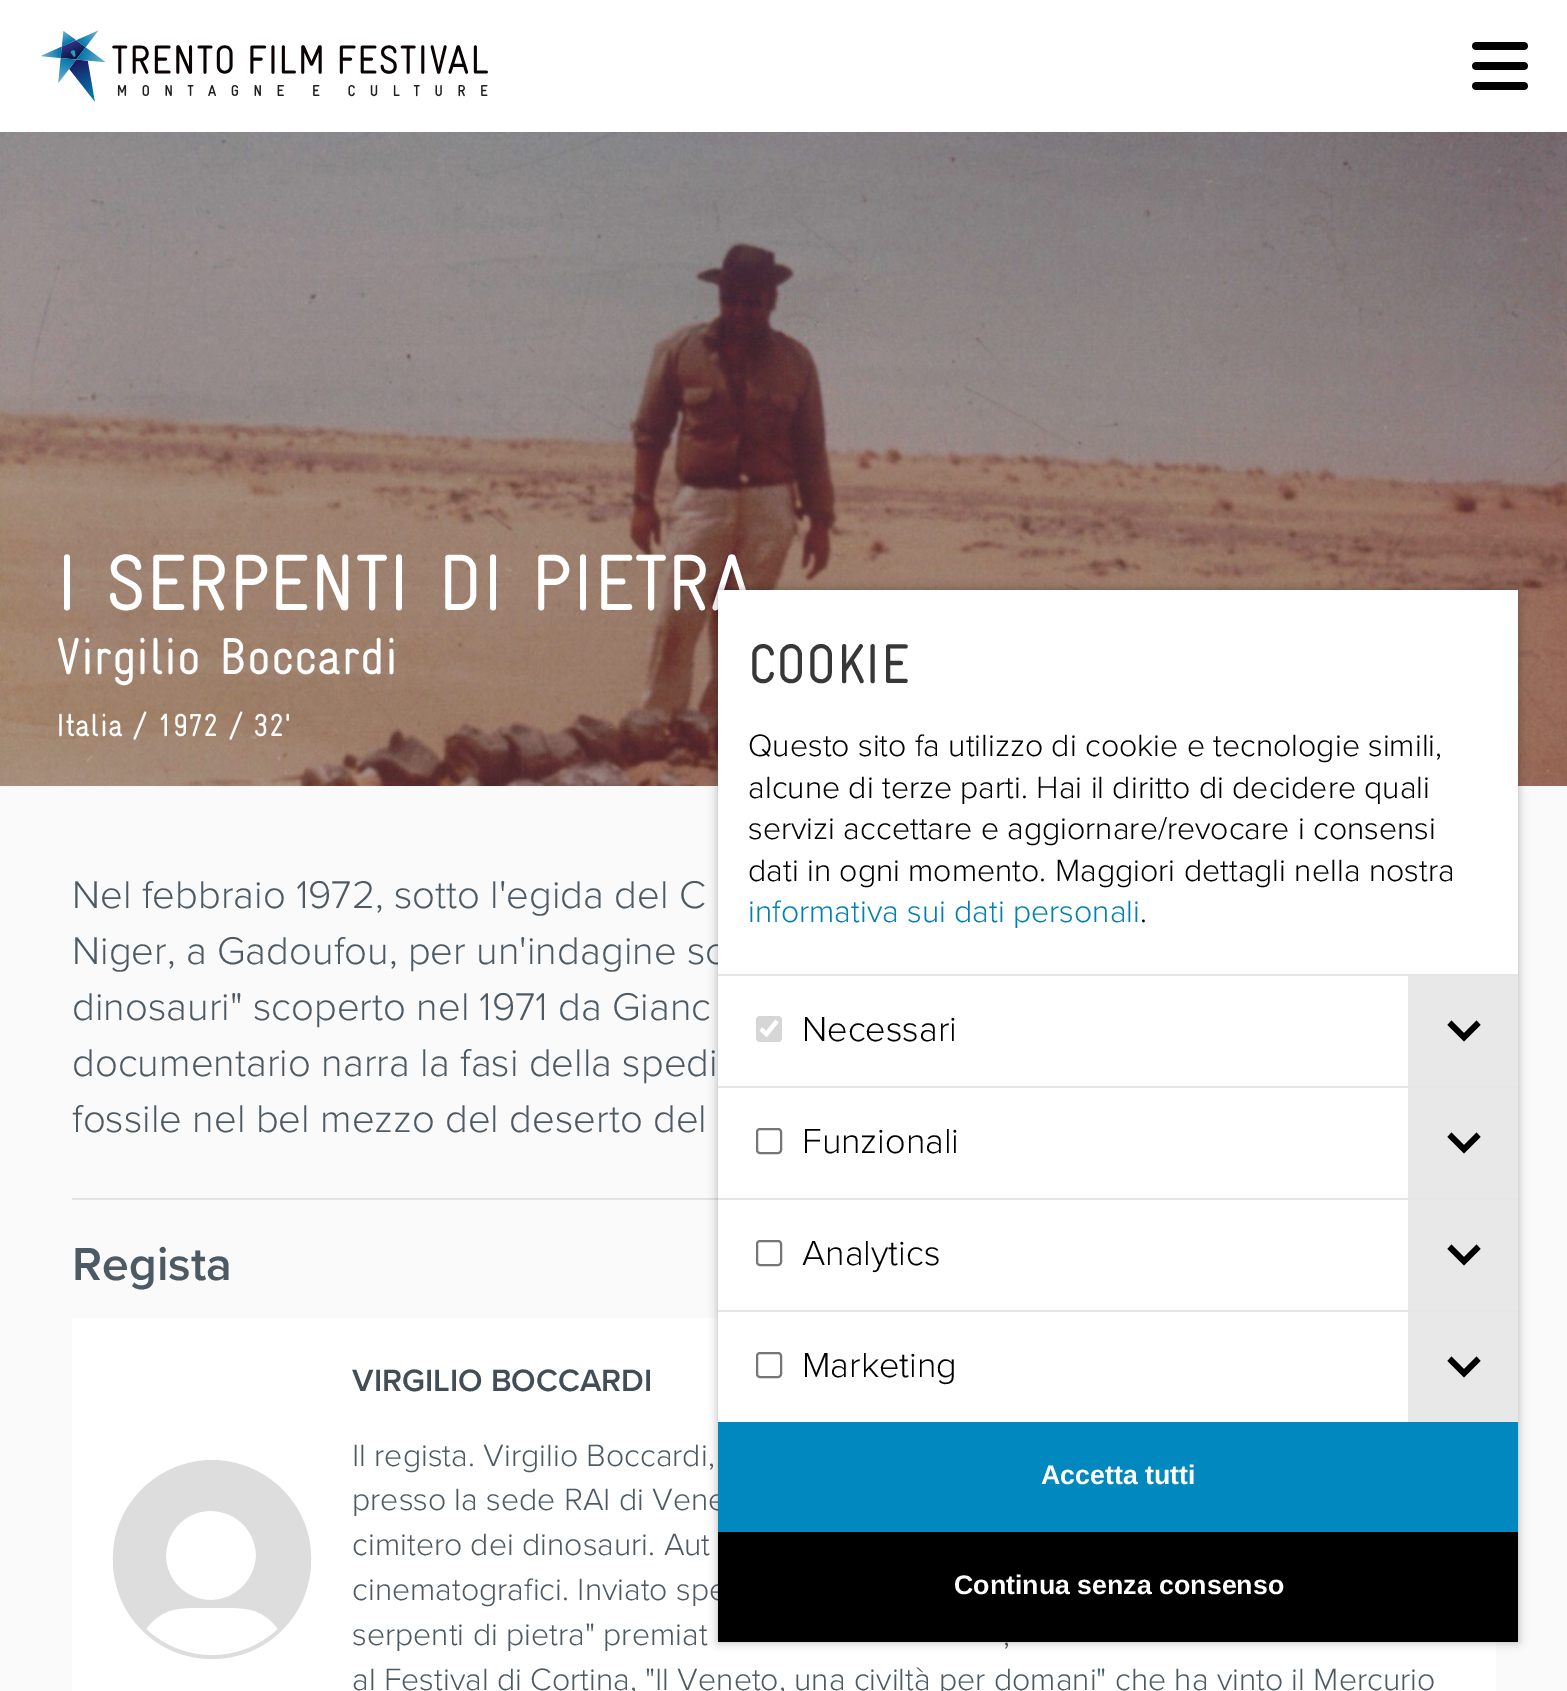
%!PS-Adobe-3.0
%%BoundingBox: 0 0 1567 1691
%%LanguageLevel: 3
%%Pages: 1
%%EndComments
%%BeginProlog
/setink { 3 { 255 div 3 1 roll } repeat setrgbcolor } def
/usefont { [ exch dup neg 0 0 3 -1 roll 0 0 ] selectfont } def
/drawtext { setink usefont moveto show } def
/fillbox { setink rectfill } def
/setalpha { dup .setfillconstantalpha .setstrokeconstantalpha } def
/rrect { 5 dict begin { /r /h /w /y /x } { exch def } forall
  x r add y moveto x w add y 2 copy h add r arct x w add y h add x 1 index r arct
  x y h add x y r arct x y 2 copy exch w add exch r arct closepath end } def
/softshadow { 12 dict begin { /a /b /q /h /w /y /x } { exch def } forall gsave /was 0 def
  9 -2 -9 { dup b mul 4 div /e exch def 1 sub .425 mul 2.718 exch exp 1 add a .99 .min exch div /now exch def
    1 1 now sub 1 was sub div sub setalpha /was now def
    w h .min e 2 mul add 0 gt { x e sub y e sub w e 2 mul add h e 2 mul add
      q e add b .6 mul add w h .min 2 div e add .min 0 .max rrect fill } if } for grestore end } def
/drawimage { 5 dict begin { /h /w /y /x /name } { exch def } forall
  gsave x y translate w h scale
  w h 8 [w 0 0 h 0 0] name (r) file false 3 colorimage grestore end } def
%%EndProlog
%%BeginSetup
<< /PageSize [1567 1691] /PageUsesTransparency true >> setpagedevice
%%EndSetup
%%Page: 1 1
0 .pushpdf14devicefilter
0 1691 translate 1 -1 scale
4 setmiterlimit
0 0 1567 1691 255 255 255 fillbox
(assets/img1.rgb) 41 30 447 72 drawimage
(assets/img2.rgb) 1472 42 56 48 drawimage
0 786 1567 905 250 250 250 fillbox
(assets/img3.rgb) 0 132 1567 654 drawimage
(I SERPENTI DI PIETRA) 56 610 /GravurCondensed-Regular 80 255 255 255 drawtext
(Virgilio Boccardi) 56 674 /GravurCondensed-Regular 52 255 255 255 drawtext
(Italia / 1972 / 32') 56 736 /GravurCondensed-Regular 32 255 255 255 drawtext
(Nel febbraio 1972, sotto l'egida del C) 72 908 /ProximaNova-Light 40 77 90 100 drawtext
(Niger, a Gadoufou, per un'indagine sc) 72 964 /ProximaNova-Light 40 77 90 100 drawtext
(dinosauri" scoperto nel 1971 da Gianc) 72 1020 /ProximaNova-Light 40 77 90 100 drawtext
(documentario narra la fasi della spedi) 72 1076 /ProximaNova-Light 40 77 90 100 drawtext
(fossile nel bel mezzo del deserto del) 72 1132 /ProximaNova-Light 40 77 90 100 drawtext
72 1198 646 2 226 226 226 fillbox
(Regista) 72 1280 /ProximaNova-SemiBold 48 77 90 100 drawtext
72 1318 1424 373 255 255 255 fillbox
221 221 221 setink
211 1460 moveto 157 1461 112 1505 113 1560 curveto 113 1615 157 1659 212 1659 curveto 267 1659 311 1615 311 1560 curveto 312 1505 267 1461 213 1460 curveto closepath 211 1511 moveto 236 1511 256 1531 256 1556 curveto 255 1580 235 1600 211 1600 curveto 186 1600 166 1580 166 1556 curveto 166 1531 186 1511 210 1511 curveto closepath 146 1629 moveto 164 1605 184 1608 212 1608 curveto 240 1608 260 1605 278 1629 curveto 241 1664 183 1664 146 1629 curveto fill
(VIRGILIO BOCCARDI) 352 1391 /ProximaNova-SemiBold 32 66 77 86 drawtext
(Il regista. Virgilio Boccardi,) 352 1466 /ProximaNova-Light 32 77 90 100 drawtext
(presso la sede RAI di Vene) 352 1510 /ProximaNova-Light 32 77 90 100 drawtext
(cimitero dei dinosauri. Aut) 352 1555 /ProximaNova-Light 32 77 90 100 drawtext
(cinematografici. Inviato spe) 352 1600 /ProximaNova-Light 32 77 90 100 drawtext
(serpenti di pietra" premiat) 352 1645 /ProximaNova-Light 32 77 90 100 drawtext
(,) 1003 1645 /ProximaNova-Light 32 77 90 100 drawtext
(al Festival di Cortina, "Il Veneto, una civiltà per domani" che ha vinto il Mercurio) 352 1690 /ProximaNova-Light 32 77 90 100 drawtext
0 0 0 setink
718 590 800 1052 0 5 0.3 softshadow
718 590 800 832 255 255 255 fillbox
(COOKIE) 748 683 /GravurCondensed-Regular 56 55 55 55 drawtext
(Questo sito fa utilizzo di cookie e tecnologie simili,) 748 756 /ProximaNova-Light 32 0 0 0 drawtext
(alcune di terze parti. Hai il diritto di decidere quali) 748 798 /ProximaNova-Light 32 0 0 0 drawtext
(servizi accettare e aggiornare/revocare i consensi) 748 839 /ProximaNova-Light 32 0 0 0 drawtext
(dati in ogni momento. Maggiori dettagli nella nostra) 748 881 /ProximaNova-Light 32 0 0 0 drawtext
(informativa sui dati personali) 748 922 /ProximaNova-Light 32 0 127 177 drawtext
(.) 1140 922 /ProximaNova-Light 32 0 0 0 drawtext
718 974 800 2 230 230 230 fillbox
214 214 214 setink
756 1016 26 26 4 rrect fill
255 255 255 setink
4.2 setlinewidth
761 1029 moveto 766.5 1034 lineto 777 1021 lineto stroke
(Necessari) 802 1041 /ProximaNova-Light 36 0 0 0 drawtext
1408 976 110 110 232 232 232 fillbox
0 0 0 setink
1476.5 1020.5 moveto 1480.5 1025 lineto 1464 1041.5 lineto 1447.5 1025 lineto 1451.5 1020.5 lineto 1464 1033 lineto closepath fill
718 1086 800 2 230 230 230 fillbox
118 118 118 setink
2 setlinewidth
757 1129 24 24 3 rrect stroke
(Funzionali) 802 1153 /ProximaNova-Light 36 0 0 0 drawtext
1408 1088 110 110 232 232 232 fillbox
0 0 0 setink
1476.5 1132.5 moveto 1480.5 1137 lineto 1464 1153.5 lineto 1447.5 1137 lineto 1451.5 1132.5 lineto 1464 1145 lineto closepath fill
718 1198 800 2 230 230 230 fillbox
118 118 118 setink
757 1241 24 24 3 rrect stroke
(Analytics) 802 1265 /ProximaNova-Light 36 0 0 0 drawtext
1408 1200 110 110 232 232 232 fillbox
0 0 0 setink
1476.5 1244.5 moveto 1480.5 1249 lineto 1464 1265.5 lineto 1447.5 1249 lineto 1451.5 1244.5 lineto 1464 1257 lineto closepath fill
718 1310 800 2 230 230 230 fillbox
118 118 118 setink
757 1353 24 24 3 rrect stroke
(Marketing) 802 1377 /ProximaNova-Light 36 0 0 0 drawtext
1408 1312 110 110 232 232 232 fillbox
0 0 0 setink
1476.5 1356.5 moveto 1480.5 1361 lineto 1464 1377.5 lineto 1447.5 1361 lineto 1451.5 1356.5 lineto 1464 1369 lineto closepath fill
718 1422 800 110 0 136 191 fillbox
(Accetta tutti) 1041 1484 /LiberationSans-Bold 26.75 255 255 255 drawtext
718 1532 800 110 0 0 0 fillbox
(Continua senza consenso) 954 1594 /LiberationSans-Bold 26.75 255 255 255 drawtext
.poppdf14devicefilter showpage
%%EOF
